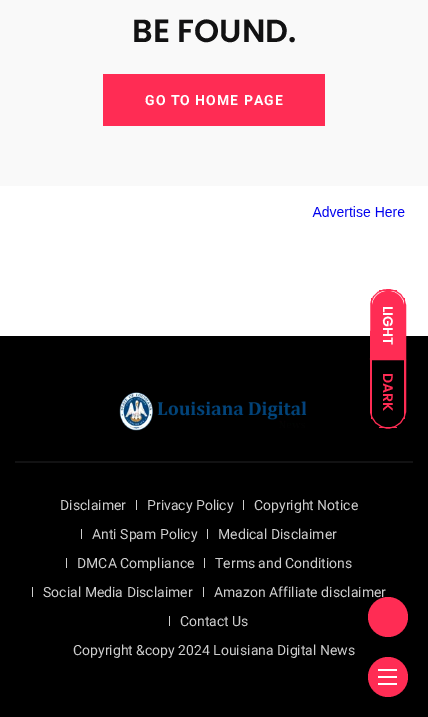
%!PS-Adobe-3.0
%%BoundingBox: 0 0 428 717
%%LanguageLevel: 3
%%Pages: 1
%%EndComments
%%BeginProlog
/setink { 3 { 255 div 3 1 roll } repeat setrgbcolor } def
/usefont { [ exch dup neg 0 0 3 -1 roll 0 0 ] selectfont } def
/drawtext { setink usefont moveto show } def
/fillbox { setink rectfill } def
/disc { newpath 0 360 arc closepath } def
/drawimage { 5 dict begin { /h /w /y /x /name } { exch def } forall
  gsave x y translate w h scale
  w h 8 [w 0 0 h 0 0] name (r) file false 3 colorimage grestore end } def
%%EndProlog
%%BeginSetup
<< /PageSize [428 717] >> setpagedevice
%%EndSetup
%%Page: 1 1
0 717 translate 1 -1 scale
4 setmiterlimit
0 0 428 717 255 255 255 fillbox
0 0 428 186 249 249 249 fillbox
(BE FOUND.) 132 42 /Poppins-SemiBold 32 18 18 19 drawtext
103 74 222 52 255 44 84 fillbox
/Roboto-Bold 14 usefont
255 255 255 setink
145 105 moveto 1 0 (GO TO HOME PAGE) ashow
(assets/img1.rgb) 312 206 93 11 drawimage
0 336 428 381 0 0 0 fillbox
(assets/img2.rgb) 119 392 188 39 drawimage
15 461 398 2 18 18 19 fillbox
(Disclaimer) 60 510 /Roboto-Regular 14 206 206 206 drawtext
136 500 1 10 206 206 206 fillbox
(Privacy Policy) 147 510 /Roboto-Regular 14 206 206 206 drawtext
243 500 1 10 206 206 206 fillbox
(Copyright Notice) 254 510 /Roboto-Regular 14 206 206 206 drawtext
81 529 1 10 206 206 206 fillbox
(Anti Spam Policy) 92 539 /Roboto-Regular 14 206 206 206 drawtext
207 529 1 10 206 206 206 fillbox
(Medical Disclaimer) 218 539 /Roboto-Regular 14 206 206 206 drawtext
66 558 1 10 206 206 206 fillbox
(DMCA Compliance) 77 568 /Roboto-Regular 14 206 206 206 drawtext
204 558 1 10 206 206 206 fillbox
(Terms and Conditions) 215 568 /Roboto-Regular 14 206 206 206 drawtext
32 587 1 10 206 206 206 fillbox
(Social Media Disclaimer) 43 597 /Roboto-Regular 14 206 206 206 drawtext
203 587 1 10 206 206 206 fillbox
(Amazon Affiliate disclaimer) 214 597 /Roboto-Regular 14 206 206 206 drawtext
169 616 1 10 206 206 206 fillbox
(Contact Us) 180 626 /Roboto-Regular 14 206 206 206 drawtext
(Copyright &copy 2024 Louisiana Digital News) 73 655 /Roboto-Regular 14 206 206 206 drawtext
255 44 84 setink
388 677 20 disc fill
378 669 19 2 255 255 255 fillbox
378 676 19 2 255 255 255 fillbox
378 683 19 2 255 255 255 fillbox
255 44 84 setink
404 307 moveto 404 358 lineto 372 358 lineto 372 307 lineto 372 298 379 291 388 291 curveto 397 291 404 298 404 307 curveto closepath fill
405.5 306.5 moveto 405.5 358.5 lineto 370.5 358.5 lineto 371 303 lineto 375 283 405.5 286 405.5 306.5 curveto closepath stroke
404 298 1 61 255 44 84 fillbox
371 298 1 61 255 44 84 fillbox
379 290 18 1 255 44 84 fillbox
/Poppins-SemiBold 14 usefont
255 255 255 setink
gsave 383 306 translate 90 rotate 0 0 moveto (LIGHT) show grestore
255 44 84 setink
405.5 359.5 moveto 405.5 410.5 lineto 405.5 420 398 428 388 428 curveto 378.5 428 370.5 420 370.5 410.5 curveto 370.5 359.5 lineto closepath stroke
404 359 1 60 255 44 84 fillbox
379 427 18 1 255 44 84 fillbox
371 359 1 60 255 44 84 fillbox
gsave 383 373 translate 90 rotate 0 0 moveto (DARK) show grestore
388 617 20 disc fill
showpage
%%EOF
